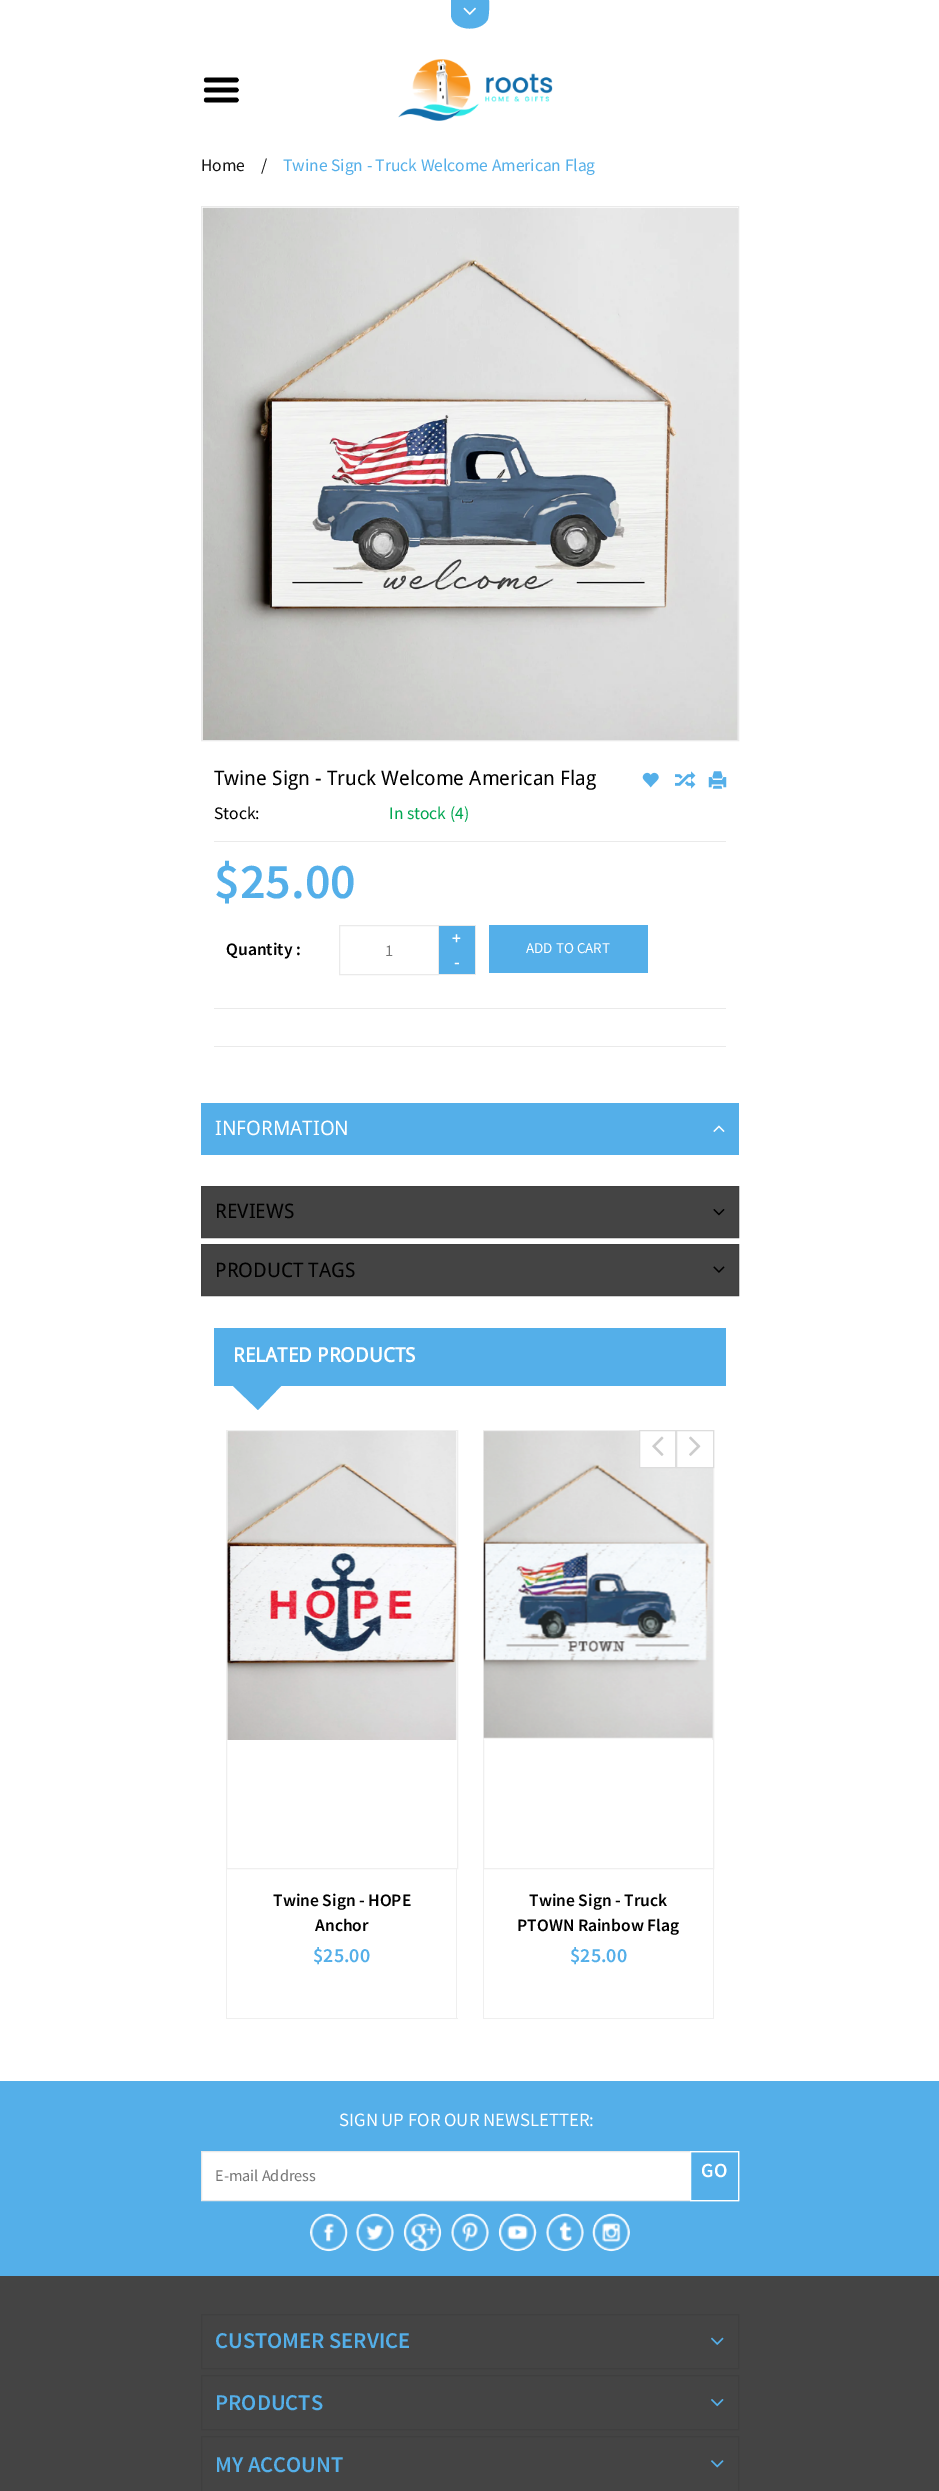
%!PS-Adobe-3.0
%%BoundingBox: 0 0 939 2491
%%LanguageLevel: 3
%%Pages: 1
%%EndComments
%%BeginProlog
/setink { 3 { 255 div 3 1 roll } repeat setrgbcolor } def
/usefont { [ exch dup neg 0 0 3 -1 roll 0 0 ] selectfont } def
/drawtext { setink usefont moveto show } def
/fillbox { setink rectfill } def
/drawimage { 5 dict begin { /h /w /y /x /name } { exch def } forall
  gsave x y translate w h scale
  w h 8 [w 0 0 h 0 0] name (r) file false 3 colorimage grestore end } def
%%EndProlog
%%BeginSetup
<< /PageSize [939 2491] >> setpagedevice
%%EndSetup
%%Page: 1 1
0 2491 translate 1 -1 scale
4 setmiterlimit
0 0 939 2491 255 255 255 fillbox
84 175 233 setink
451 0 moveto 489 0 lineto 489 5.5 489.5 15.5 487.5 20 curveto 479.5 33.5 451 30.5 451 14.5 curveto closepath fill
(assets/img1.rgb) 463 7 13 8 drawimage
(assets/img2.rgb) 203 77 36 26 drawimage
(assets/img3.rgb) 398 59 155 62 drawimage
(Home) 201 171 /SourceSansPro-Regular 17.5 20 20 20 drawtext
(/) 261 171 /SourceSansPro-Regular 17.5 20 20 20 drawtext
(Twine Sign - Truck Welcome American Flag) 283 171 /SourceSansPro-Regular 17.5 84 175 233 drawtext
234 234 234 setink
201.5 206.5 537 534 rectstroke
737 208 1 532 229 229 229 fillbox
(assets/img4.rgb) 202 207 536 533 drawimage
(Twine Sign - Truck Welcome American Flag) 214 785 /DroidSans-Regular 20 0 0 0 drawtext
(assets/img5.rgb) 642 772 17 16 drawimage
(assets/img6.rgb) 675 771 21 18 drawimage
(assets/img7.rgb) 708 771 19 18 drawimage
(Stock:) 214 819 /SourceSansPro-Regular 17.5 0 0 0 drawtext
(In stock \(4\)) 389 819 /SourceSansPro-Regular 17.5 0 166 81 drawtext
214 841 512 1 234 234 234 fillbox
($25.00) 214 898 /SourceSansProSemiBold-SemiBold 50 84 175 233 drawtext
(Quantity :) 226 955 /SourceSansProSemiBold-SemiBold 17.5 0 0 0 drawtext
234 234 234 setink
339.5 925.5 99 49 rectstroke
(1) 385 956 /SourceSansPro-Regular 16.25 119 119 119 drawtext
439 926 36 48 84 175 233 fillbox
439 925 37 1 234 234 234 fillbox
475 925 1 50 234 234 234 fillbox
439 974 37 1 234 234 234 fillbox
(+) 452 944 /SourceSansProSemiBold-SemiBold 17.5 255 255 255 drawtext
(-) 454 968 /SourceSansProSemiBold-SemiBold 17.5 255 255 255 drawtext
489 925 159 48 84 175 233 fillbox
(ADD TO CART) 526 953 /SourceSansPro-Regular 15 255 255 255 drawtext
214 1008 512 1 234 234 234 fillbox
214 1046 512 1 234 234 234 fillbox
201 1103 538 52 84 175 233 fillbox
(INFORMATION) 215 1135 /DroidSans-Regular 20 255 255 255 drawtext
(assets/img8.rgb) 713 1125 12 7 drawimage
68 68 68 setink
201.5 1186.5 moveto 738.5 1186.5 lineto 738.5 1237.5 lineto 201.5 1237.5 lineto closepath gsave fill grestore
63 63 63 setink
stroke
(REVIEWS) 215 1218 /DroidSans-Regular 20 0 0 0 drawtext
(assets/img9.rgb) 713 1209 12 7 drawimage
68 68 68 setink
201.5 1244.5 moveto 738.5 1244.5 lineto 738.5 1295.5 lineto 201.5 1295.5 lineto closepath gsave fill grestore
63 63 63 setink
stroke
(PRODUCT TAGS) 215 1277 /DroidSans-Regular 20 0 0 0 drawtext
(assets/img10.rgb) 713 1266 12 7 drawimage
214 1328 512 58 84 175 233 fillbox
(RELATED PRODUCTS) 233 1362 /DroidSans-Bold 20 255 255 255 drawtext
84 175 233 setink
232 1385 moveto 282 1385 lineto 258 1410 lineto closepath fill
239 239 239 setink
483.5 1430.5 230 438 rectstroke
484 1431 229 309 229 229 229 fillbox
(assets/img14.rgb) 483 1431 230 309 drawimage
255 255 255 setink
639.5 1430.5 moveto 675.5 1430.5 lineto 675.5 1467.5 lineto 639.5 1467.5 lineto closepath gsave fill grestore
221 221 221 setink
stroke
(assets/img11.rgb) 652 1436 12 20 drawimage
255 255 255 setink
676.5 1430.5 moveto 713.5 1430.5 lineto 713.5 1467.5 lineto 676.5 1467.5 lineto closepath gsave fill grestore
221 221 221 setink
stroke
(assets/img12.rgb) 689 1436 12 20 drawimage
239 239 239 setink
226.5 1430.5 231 438 rectstroke
(assets/img13.rgb) 227 1431 230 309 drawimage
456 1869 1 150 239 239 239 fillbox
226 2018 232 1 239 239 239 fillbox
226 1869 1 150 239 239 239 fillbox
(Twine Sign - HOPE) 273 1906 /SourceSansProSemiBold-SemiBold 17.5 0 0 0 drawtext
(Anchor) 315 1931 /SourceSansProSemiBold-SemiBold 17.5 0 0 0 drawtext
($25.00) 313 1962 /SourceSansProSemiBold-SemiBold 20 84 175 233 drawtext
713 1869 1 150 239 239 239 fillbox
483 2018 231 1 239 239 239 fillbox
483 1869 1 150 239 239 239 fillbox
(Twine Sign - Truck) 529 1906 /SourceSansProSemiBold-SemiBold 17.5 0 0 0 drawtext
(PTOWN Rainbow Flag) 517 1931 /SourceSansProSemiBold-SemiBold 17.5 0 0 0 drawtext
($25.00) 570 1962 /SourceSansProSemiBold-SemiBold 20 84 175 233 drawtext
0 2276 939 215 68 68 68 fillbox
0 2081 939 195 84 175 233 fillbox
(SIGN UP FOR OUR NEWSLETTER:) 339 2126 /SourceSansPro-Regular 18.75 255 255 255 drawtext
202 2152 488 48 255 255 255 fillbox
233 233 233 setink
201.5 2151.5 537 49 rectstroke
(E-mail Address) 215 2181 /SourceSansPro-Regular 16.25 119 119 119 drawtext
255 255 255 setink
690.5 2151.5 48 49 rectstroke
(GO) 701 2177 /SourceSansProSemiBold-SemiBold 20 255 255 255 drawtext
(assets/img15.rgb) 309 2213 39 39 drawimage
(assets/img16.rgb) 356 2213 38 39 drawimage
(assets/img17.rgb) 403 2213 39 39 drawimage
(assets/img18.rgb) 451 2213 38 39 drawimage
(assets/img19.rgb) 498 2213 39 39 drawimage
(assets/img20.rgb) 546 2213 38 39 drawimage
(assets/img21.rgb) 592 2213 38 39 drawimage
63 63 63 setink
201.5 2314.5 537 54 rectstroke
(CUSTOMER SERVICE) 215 2348 /SourceSansProSemiBold-SemiBold 22.5 84 175 233 drawtext
(assets/img22.rgb) 711 2337 13 8 drawimage
63 63 63 setink
201.5 2375.5 537 54 rectstroke
(PRODUCTS) 215 2410 /SourceSansProSemiBold-SemiBold 22.5 84 175 233 drawtext
(assets/img23.rgb) 711 2399 13 8 drawimage
63 63 63 setink
201.5 2436.5 537 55 rectstroke
(MY ACCOUNT) 215 2472 /SourceSansProSemiBold-SemiBold 22.5 84 175 233 drawtext
(assets/img24.rgb) 711 2460 13 8 drawimage
showpage
%%EOF
